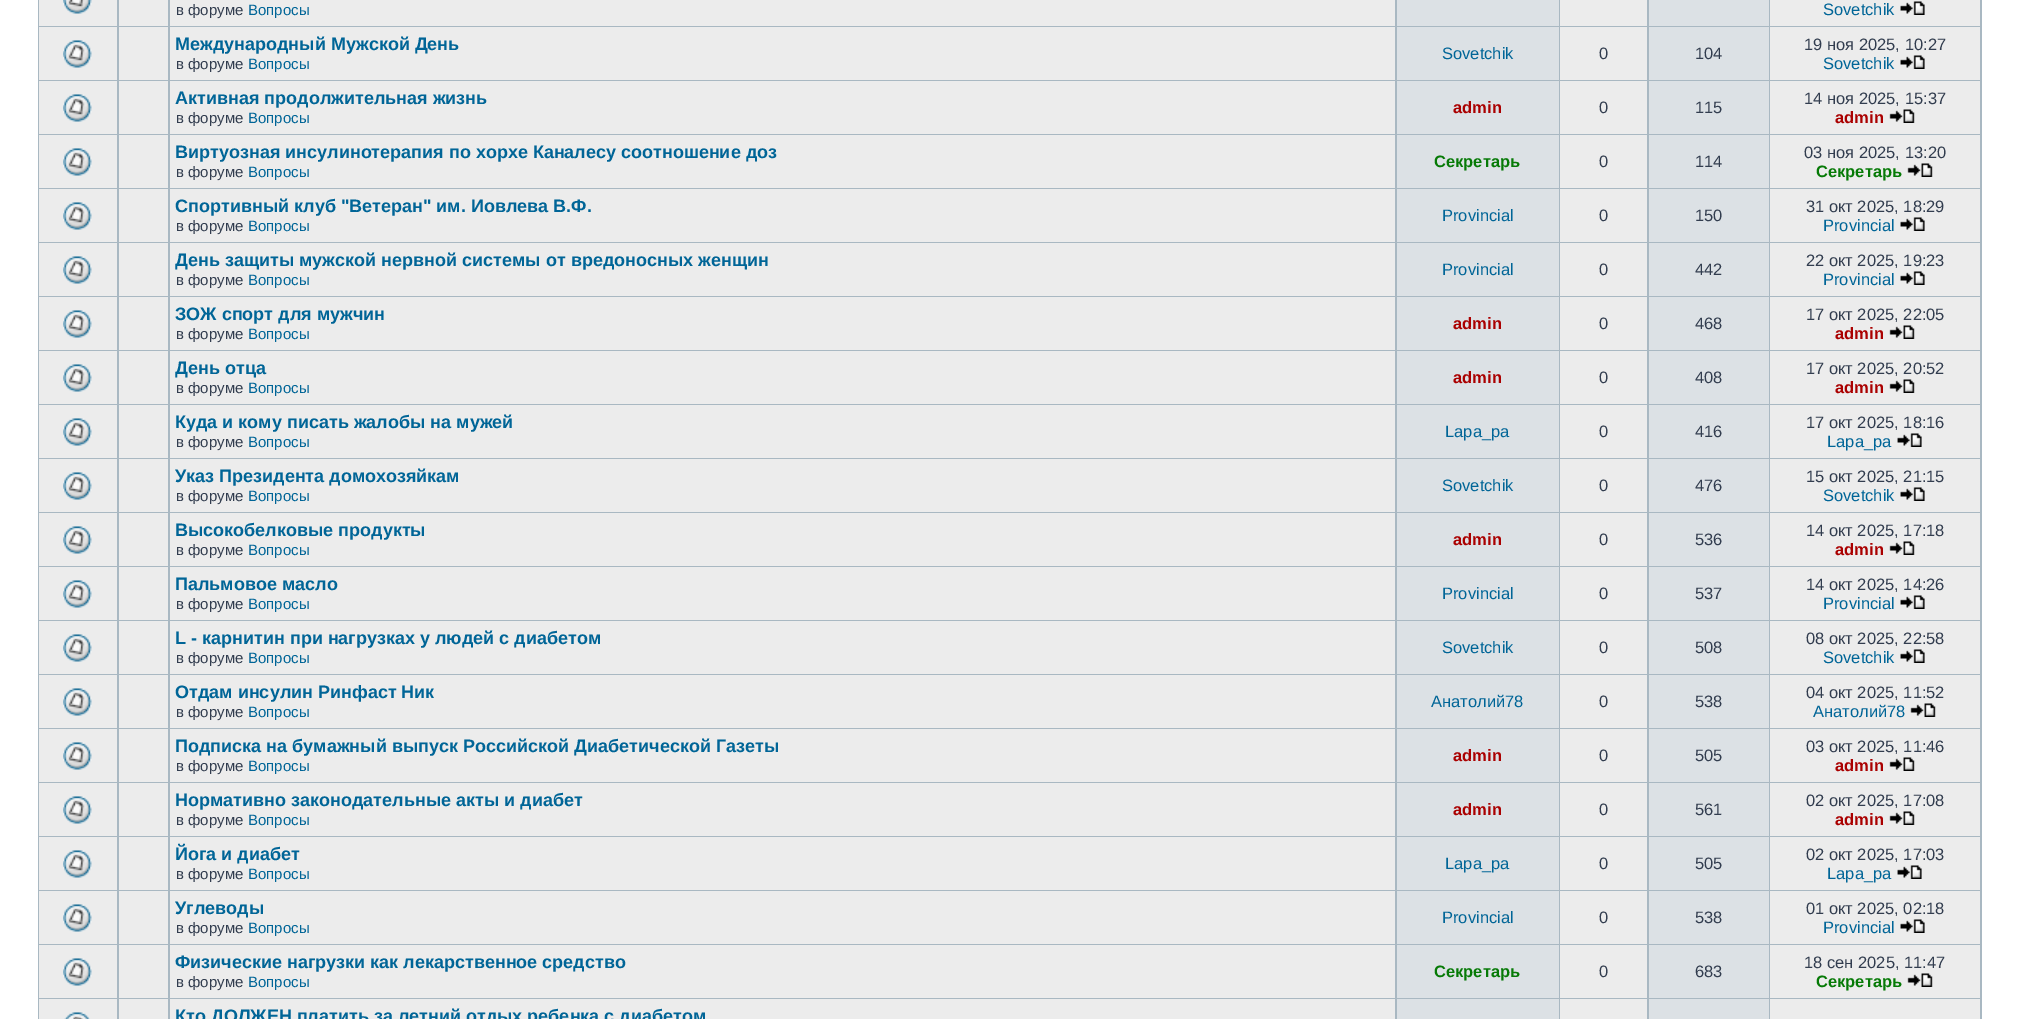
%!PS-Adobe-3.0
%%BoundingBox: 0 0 2018 1019
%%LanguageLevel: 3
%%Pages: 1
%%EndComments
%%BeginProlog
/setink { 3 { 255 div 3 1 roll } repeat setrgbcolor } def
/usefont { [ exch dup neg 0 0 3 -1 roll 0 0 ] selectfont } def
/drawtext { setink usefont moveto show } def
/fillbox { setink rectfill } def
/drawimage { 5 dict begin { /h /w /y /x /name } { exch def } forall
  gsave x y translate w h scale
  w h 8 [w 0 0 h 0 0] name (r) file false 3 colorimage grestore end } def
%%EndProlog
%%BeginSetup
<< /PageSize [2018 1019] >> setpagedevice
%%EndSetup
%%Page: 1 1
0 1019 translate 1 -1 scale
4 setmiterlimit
0 0 2018 1019 255 255 255 fillbox
38 0 1944 1019 169 184 194 fillbox
39 0 78 26 236 236 236 fillbox
(assets/img1.rgb) 63 0 29 14 drawimage
119 0 49 26 236 236 236 fillbox
170 0 1225 26 236 236 236 fillbox
(в форуме) 176 15 /LiberationSans-Regular 15 50 61 79 drawtext
(Вопросы) 248 15 /LiberationSans-Regular 15 0 101 151 drawtext
1397 0 162 26 220 225 229 fillbox
1560 0 87 26 236 236 236 fillbox
1649 0 120 26 220 225 229 fillbox
1770 0 210 26 236 236 236 fillbox
(Sovetchik) 1823 15 /LiberationSans-Regular 16.5 0 101 151 drawtext
(assets/img2.rgb) 1900 1 25 14 drawimage
39 27 78 53 236 236 236 fillbox
(assets/img3.rgb) 63 40 29 28 drawimage
119 27 49 53 236 236 236 fillbox
170 27 1225 53 236 236 236 fillbox
(Международный Мужской День) 175 50 /LiberationSans-Bold 18 0 101 151 drawtext
(в форуме) 176 69 /LiberationSans-Regular 15 50 61 79 drawtext
(Вопросы) 248 69 /LiberationSans-Regular 15 0 101 151 drawtext
1397 27 162 53 220 225 229 fillbox
(Sovetchik) 1442 59 /LiberationSans-Regular 16.5 0 101 151 drawtext
1560 27 87 53 236 236 236 fillbox
(0) 1599 59 /LiberationSans-Regular 16.5 50 61 79 drawtext
1649 27 120 53 220 225 229 fillbox
(104) 1695 59 /LiberationSans-Regular 16.5 50 61 79 drawtext
1770 27 210 53 236 236 236 fillbox
(19 ноя 2025, 10:27) 1804 50 /LiberationSans-Regular 16.5 50 61 79 drawtext
(Sovetchik) 1823 69 /LiberationSans-Regular 16.5 0 101 151 drawtext
(assets/img2.rgb) 1900 55 25 14 drawimage
39 81 78 53 236 236 236 fillbox
(assets/img3.rgb) 63 94 29 28 drawimage
119 81 49 53 236 236 236 fillbox
170 81 1225 53 236 236 236 fillbox
(Активная продолжительная жизнь) 175 104 /LiberationSans-Bold 18 0 101 151 drawtext
(в форуме) 176 123 /LiberationSans-Regular 15 50 61 79 drawtext
(Вопросы) 248 123 /LiberationSans-Regular 15 0 101 151 drawtext
1397 81 162 53 220 225 229 fillbox
(admin) 1453 113 /LiberationSans-Bold 16.5 170 0 0 drawtext
1560 81 87 53 236 236 236 fillbox
(0) 1599 113 /LiberationSans-Regular 16.5 50 61 79 drawtext
1649 81 120 53 220 225 229 fillbox
(115) 1695 113 /LiberationSans-Regular 16.5 50 61 79 drawtext
1770 81 210 53 236 236 236 fillbox
(14 ноя 2025, 15:37) 1804 104 /LiberationSans-Regular 16.5 50 61 79 drawtext
(admin) 1835 123 /LiberationSans-Bold 16.5 170 0 0 drawtext
(assets/img4.rgb) 1889 109 26 14 drawimage
39 135 78 53 236 236 236 fillbox
(assets/img3.rgb) 63 148 29 28 drawimage
119 135 49 53 236 236 236 fillbox
170 135 1225 53 236 236 236 fillbox
(Виртуозная инсулинотерапия по хорхе Каналесу соотношение доз) 175 158 /LiberationSans-Bold 18 0 101 151 drawtext
(в форуме) 176 177 /LiberationSans-Regular 15 50 61 79 drawtext
(Вопросы) 248 177 /LiberationSans-Regular 15 0 101 151 drawtext
1397 135 162 53 220 225 229 fillbox
(Секретарь) 1434 167 /LiberationSans-Bold 16.5 6 122 6 drawtext
1560 135 87 53 236 236 236 fillbox
(0) 1599 167 /LiberationSans-Regular 16.5 50 61 79 drawtext
1649 135 120 53 220 225 229 fillbox
(114) 1695 167 /LiberationSans-Regular 16.5 50 61 79 drawtext
1770 135 210 53 236 236 236 fillbox
(03 ноя 2025, 13:20) 1804 158 /LiberationSans-Regular 16.5 50 61 79 drawtext
(Секретарь) 1816 177 /LiberationSans-Bold 16.5 6 122 6 drawtext
(assets/img4.rgb) 1907 163 26 14 drawimage
39 189 78 53 236 236 236 fillbox
(assets/img3.rgb) 63 202 29 28 drawimage
119 189 49 53 236 236 236 fillbox
170 189 1225 53 236 236 236 fillbox
(Спортивный клуб "Ветеран" им. Иовлева В.Ф.) 175 212 /LiberationSans-Bold 18 0 101 151 drawtext
(в форуме) 176 231 /LiberationSans-Regular 15 50 61 79 drawtext
(Вопросы) 248 231 /LiberationSans-Regular 15 0 101 151 drawtext
1397 189 162 53 220 225 229 fillbox
(Provincial) 1442 221 /LiberationSans-Regular 16.5 0 101 151 drawtext
1560 189 87 53 236 236 236 fillbox
(0) 1599 221 /LiberationSans-Regular 16.5 50 61 79 drawtext
1649 189 120 53 220 225 229 fillbox
(150) 1695 221 /LiberationSans-Regular 16.5 50 61 79 drawtext
1770 189 210 53 236 236 236 fillbox
(31 окт 2025, 18:29) 1806 212 /LiberationSans-Regular 16.5 50 61 79 drawtext
(Provincial) 1823 231 /LiberationSans-Regular 16.5 0 101 151 drawtext
(assets/img2.rgb) 1900 217 25 14 drawimage
39 243 78 53 236 236 236 fillbox
(assets/img3.rgb) 63 256 29 28 drawimage
119 243 49 53 236 236 236 fillbox
170 243 1225 53 236 236 236 fillbox
(День защиты мужской нервной системы от вредоносных женщин) 175 266 /LiberationSans-Bold 18 0 101 151 drawtext
(в форуме) 176 285 /LiberationSans-Regular 15 50 61 79 drawtext
(Вопросы) 248 285 /LiberationSans-Regular 15 0 101 151 drawtext
1397 243 162 53 220 225 229 fillbox
(Provincial) 1442 275 /LiberationSans-Regular 16.5 0 101 151 drawtext
1560 243 87 53 236 236 236 fillbox
(0) 1599 275 /LiberationSans-Regular 16.5 50 61 79 drawtext
1649 243 120 53 220 225 229 fillbox
(442) 1695 275 /LiberationSans-Regular 16.5 50 61 79 drawtext
1770 243 210 53 236 236 236 fillbox
(22 окт 2025, 19:23) 1806 266 /LiberationSans-Regular 16.5 50 61 79 drawtext
(Provincial) 1823 285 /LiberationSans-Regular 16.5 0 101 151 drawtext
(assets/img2.rgb) 1900 271 25 14 drawimage
39 297 78 53 236 236 236 fillbox
(assets/img3.rgb) 63 310 29 28 drawimage
119 297 49 53 236 236 236 fillbox
170 297 1225 53 236 236 236 fillbox
(ЗОЖ спорт для мужчин) 175 320 /LiberationSans-Bold 18 0 101 151 drawtext
(в форуме) 176 339 /LiberationSans-Regular 15 50 61 79 drawtext
(Вопросы) 248 339 /LiberationSans-Regular 15 0 101 151 drawtext
1397 297 162 53 220 225 229 fillbox
(admin) 1453 329 /LiberationSans-Bold 16.5 170 0 0 drawtext
1560 297 87 53 236 236 236 fillbox
(0) 1599 329 /LiberationSans-Regular 16.5 50 61 79 drawtext
1649 297 120 53 220 225 229 fillbox
(468) 1695 329 /LiberationSans-Regular 16.5 50 61 79 drawtext
1770 297 210 53 236 236 236 fillbox
(17 окт 2025, 22:05) 1806 320 /LiberationSans-Regular 16.5 50 61 79 drawtext
(admin) 1835 339 /LiberationSans-Bold 16.5 170 0 0 drawtext
(assets/img4.rgb) 1889 325 26 14 drawimage
39 351 78 53 236 236 236 fillbox
(assets/img3.rgb) 63 364 29 28 drawimage
119 351 49 53 236 236 236 fillbox
170 351 1225 53 236 236 236 fillbox
(День отца) 175 374 /LiberationSans-Bold 18 0 101 151 drawtext
(в форуме) 176 393 /LiberationSans-Regular 15 50 61 79 drawtext
(Вопросы) 248 393 /LiberationSans-Regular 15 0 101 151 drawtext
1397 351 162 53 220 225 229 fillbox
(admin) 1453 383 /LiberationSans-Bold 16.5 170 0 0 drawtext
1560 351 87 53 236 236 236 fillbox
(0) 1599 383 /LiberationSans-Regular 16.5 50 61 79 drawtext
1649 351 120 53 220 225 229 fillbox
(408) 1695 383 /LiberationSans-Regular 16.5 50 61 79 drawtext
1770 351 210 53 236 236 236 fillbox
(17 окт 2025, 20:52) 1806 374 /LiberationSans-Regular 16.5 50 61 79 drawtext
(admin) 1835 393 /LiberationSans-Bold 16.5 170 0 0 drawtext
(assets/img4.rgb) 1889 379 26 14 drawimage
39 405 78 53 236 236 236 fillbox
(assets/img3.rgb) 63 418 29 28 drawimage
119 405 49 53 236 236 236 fillbox
170 405 1225 53 236 236 236 fillbox
(Куда и кому писать жалобы на мужей) 175 428 /LiberationSans-Bold 18 0 101 151 drawtext
(в форуме) 176 447 /LiberationSans-Regular 15 50 61 79 drawtext
(Вопросы) 248 447 /LiberationSans-Regular 15 0 101 151 drawtext
1397 405 162 53 220 225 229 fillbox
(Lapa_pa) 1445 437 /LiberationSans-Regular 16.5 0 101 151 drawtext
1560 405 87 53 236 236 236 fillbox
(0) 1599 437 /LiberationSans-Regular 16.5 50 61 79 drawtext
1649 405 120 53 220 225 229 fillbox
(416) 1695 437 /LiberationSans-Regular 16.5 50 61 79 drawtext
1770 405 210 53 236 236 236 fillbox
(17 окт 2025, 18:16) 1806 428 /LiberationSans-Regular 16.5 50 61 79 drawtext
(Lapa_pa) 1827 447 /LiberationSans-Regular 16.5 0 101 151 drawtext
(assets/img2.rgb) 1897 433 25 14 drawimage
39 459 78 53 236 236 236 fillbox
(assets/img3.rgb) 63 472 29 28 drawimage
119 459 49 53 236 236 236 fillbox
170 459 1225 53 236 236 236 fillbox
(Указ Президента домохозяйкам) 175 482 /LiberationSans-Bold 18 0 101 151 drawtext
(в форуме) 176 501 /LiberationSans-Regular 15 50 61 79 drawtext
(Вопросы) 248 501 /LiberationSans-Regular 15 0 101 151 drawtext
1397 459 162 53 220 225 229 fillbox
(Sovetchik) 1442 491 /LiberationSans-Regular 16.5 0 101 151 drawtext
1560 459 87 53 236 236 236 fillbox
(0) 1599 491 /LiberationSans-Regular 16.5 50 61 79 drawtext
1649 459 120 53 220 225 229 fillbox
(476) 1695 491 /LiberationSans-Regular 16.5 50 61 79 drawtext
1770 459 210 53 236 236 236 fillbox
(15 окт 2025, 21:15) 1806 482 /LiberationSans-Regular 16.5 50 61 79 drawtext
(Sovetchik) 1823 501 /LiberationSans-Regular 16.5 0 101 151 drawtext
(assets/img2.rgb) 1900 487 25 14 drawimage
39 513 78 53 236 236 236 fillbox
(assets/img3.rgb) 63 526 29 28 drawimage
119 513 49 53 236 236 236 fillbox
170 513 1225 53 236 236 236 fillbox
(Высокобелковые продукты) 175 536 /LiberationSans-Bold 18 0 101 151 drawtext
(в форуме) 176 555 /LiberationSans-Regular 15 50 61 79 drawtext
(Вопросы) 248 555 /LiberationSans-Regular 15 0 101 151 drawtext
1397 513 162 53 220 225 229 fillbox
(admin) 1453 545 /LiberationSans-Bold 16.5 170 0 0 drawtext
1560 513 87 53 236 236 236 fillbox
(0) 1599 545 /LiberationSans-Regular 16.5 50 61 79 drawtext
1649 513 120 53 220 225 229 fillbox
(536) 1695 545 /LiberationSans-Regular 16.5 50 61 79 drawtext
1770 513 210 53 236 236 236 fillbox
(14 окт 2025, 17:18) 1806 536 /LiberationSans-Regular 16.5 50 61 79 drawtext
(admin) 1835 555 /LiberationSans-Bold 16.5 170 0 0 drawtext
(assets/img4.rgb) 1889 541 26 14 drawimage
39 567 78 53 236 236 236 fillbox
(assets/img3.rgb) 63 580 29 28 drawimage
119 567 49 53 236 236 236 fillbox
170 567 1225 53 236 236 236 fillbox
(Пальмовое масло) 175 590 /LiberationSans-Bold 18 0 101 151 drawtext
(в форуме) 176 609 /LiberationSans-Regular 15 50 61 79 drawtext
(Вопросы) 248 609 /LiberationSans-Regular 15 0 101 151 drawtext
1397 567 162 53 220 225 229 fillbox
(Provincial) 1442 599 /LiberationSans-Regular 16.5 0 101 151 drawtext
1560 567 87 53 236 236 236 fillbox
(0) 1599 599 /LiberationSans-Regular 16.5 50 61 79 drawtext
1649 567 120 53 220 225 229 fillbox
(537) 1695 599 /LiberationSans-Regular 16.5 50 61 79 drawtext
1770 567 210 53 236 236 236 fillbox
(14 окт 2025, 14:26) 1806 590 /LiberationSans-Regular 16.5 50 61 79 drawtext
(Provincial) 1823 609 /LiberationSans-Regular 16.5 0 101 151 drawtext
(assets/img2.rgb) 1900 595 25 14 drawimage
39 621 78 53 236 236 236 fillbox
(assets/img3.rgb) 63 634 29 28 drawimage
119 621 49 53 236 236 236 fillbox
170 621 1225 53 236 236 236 fillbox
(L - карнитин при нагрузках у людей с диабетом) 175 644 /LiberationSans-Bold 18 0 101 151 drawtext
(в форуме) 176 663 /LiberationSans-Regular 15 50 61 79 drawtext
(Вопросы) 248 663 /LiberationSans-Regular 15 0 101 151 drawtext
1397 621 162 53 220 225 229 fillbox
(Sovetchik) 1442 653 /LiberationSans-Regular 16.5 0 101 151 drawtext
1560 621 87 53 236 236 236 fillbox
(0) 1599 653 /LiberationSans-Regular 16.5 50 61 79 drawtext
1649 621 120 53 220 225 229 fillbox
(508) 1695 653 /LiberationSans-Regular 16.5 50 61 79 drawtext
1770 621 210 53 236 236 236 fillbox
(08 окт 2025, 22:58) 1806 644 /LiberationSans-Regular 16.5 50 61 79 drawtext
(Sovetchik) 1823 663 /LiberationSans-Regular 16.5 0 101 151 drawtext
(assets/img2.rgb) 1900 649 25 14 drawimage
39 675 78 53 236 236 236 fillbox
(assets/img3.rgb) 63 688 29 28 drawimage
119 675 49 53 236 236 236 fillbox
170 675 1225 53 236 236 236 fillbox
(Отдам инсулин Ринфаст Ник) 175 698 /LiberationSans-Bold 18 0 101 151 drawtext
(в форуме) 176 717 /LiberationSans-Regular 15 50 61 79 drawtext
(Вопросы) 248 717 /LiberationSans-Regular 15 0 101 151 drawtext
1397 675 162 53 220 225 229 fillbox
(Анатолий78) 1431 707 /LiberationSans-Regular 16.5 0 101 151 drawtext
1560 675 87 53 236 236 236 fillbox
(0) 1599 707 /LiberationSans-Regular 16.5 50 61 79 drawtext
1649 675 120 53 220 225 229 fillbox
(538) 1695 707 /LiberationSans-Regular 16.5 50 61 79 drawtext
1770 675 210 53 236 236 236 fillbox
(04 окт 2025, 11:52) 1806 698 /LiberationSans-Regular 16.5 50 61 79 drawtext
(Анатолий78) 1813 717 /LiberationSans-Regular 16.5 0 101 151 drawtext
(assets/img4.rgb) 1910 703 26 14 drawimage
39 729 78 53 236 236 236 fillbox
(assets/img3.rgb) 63 742 29 28 drawimage
119 729 49 53 236 236 236 fillbox
170 729 1225 53 236 236 236 fillbox
(Подписка на бумажный выпуск Российской Диабетической Газеты) 175 752 /LiberationSans-Bold 18 0 101 151 drawtext
(в форуме) 176 771 /LiberationSans-Regular 15 50 61 79 drawtext
(Вопросы) 248 771 /LiberationSans-Regular 15 0 101 151 drawtext
1397 729 162 53 220 225 229 fillbox
(admin) 1453 761 /LiberationSans-Bold 16.5 170 0 0 drawtext
1560 729 87 53 236 236 236 fillbox
(0) 1599 761 /LiberationSans-Regular 16.5 50 61 79 drawtext
1649 729 120 53 220 225 229 fillbox
(505) 1695 761 /LiberationSans-Regular 16.5 50 61 79 drawtext
1770 729 210 53 236 236 236 fillbox
(03 окт 2025, 11:46) 1806 752 /LiberationSans-Regular 16.5 50 61 79 drawtext
(admin) 1835 771 /LiberationSans-Bold 16.5 170 0 0 drawtext
(assets/img4.rgb) 1889 757 26 14 drawimage
39 783 78 53 236 236 236 fillbox
(assets/img3.rgb) 63 796 29 28 drawimage
119 783 49 53 236 236 236 fillbox
170 783 1225 53 236 236 236 fillbox
(Нормативно законодательные акты и диабет) 175 806 /LiberationSans-Bold 18 0 101 151 drawtext
(в форуме) 176 825 /LiberationSans-Regular 15 50 61 79 drawtext
(Вопросы) 248 825 /LiberationSans-Regular 15 0 101 151 drawtext
1397 783 162 53 220 225 229 fillbox
(admin) 1453 815 /LiberationSans-Bold 16.5 170 0 0 drawtext
1560 783 87 53 236 236 236 fillbox
(0) 1599 815 /LiberationSans-Regular 16.5 50 61 79 drawtext
1649 783 120 53 220 225 229 fillbox
(561) 1695 815 /LiberationSans-Regular 16.5 50 61 79 drawtext
1770 783 210 53 236 236 236 fillbox
(02 окт 2025, 17:08) 1806 806 /LiberationSans-Regular 16.5 50 61 79 drawtext
(admin) 1835 825 /LiberationSans-Bold 16.5 170 0 0 drawtext
(assets/img4.rgb) 1889 811 26 14 drawimage
39 837 78 53 236 236 236 fillbox
(assets/img3.rgb) 63 850 29 28 drawimage
119 837 49 53 236 236 236 fillbox
170 837 1225 53 236 236 236 fillbox
(Йога и диабет) 175 860 /LiberationSans-Bold 18 0 101 151 drawtext
(в форуме) 176 879 /LiberationSans-Regular 15 50 61 79 drawtext
(Вопросы) 248 879 /LiberationSans-Regular 15 0 101 151 drawtext
1397 837 162 53 220 225 229 fillbox
(Lapa_pa) 1445 869 /LiberationSans-Regular 16.5 0 101 151 drawtext
1560 837 87 53 236 236 236 fillbox
(0) 1599 869 /LiberationSans-Regular 16.5 50 61 79 drawtext
1649 837 120 53 220 225 229 fillbox
(505) 1695 869 /LiberationSans-Regular 16.5 50 61 79 drawtext
1770 837 210 53 236 236 236 fillbox
(02 окт 2025, 17:03) 1806 860 /LiberationSans-Regular 16.5 50 61 79 drawtext
(Lapa_pa) 1827 879 /LiberationSans-Regular 16.5 0 101 151 drawtext
(assets/img2.rgb) 1897 865 25 14 drawimage
39 891 78 53 236 236 236 fillbox
(assets/img3.rgb) 63 904 29 28 drawimage
119 891 49 53 236 236 236 fillbox
170 891 1225 53 236 236 236 fillbox
(Углеводы) 175 914 /LiberationSans-Bold 18 0 101 151 drawtext
(в форуме) 176 933 /LiberationSans-Regular 15 50 61 79 drawtext
(Вопросы) 248 933 /LiberationSans-Regular 15 0 101 151 drawtext
1397 891 162 53 220 225 229 fillbox
(Provincial) 1442 923 /LiberationSans-Regular 16.5 0 101 151 drawtext
1560 891 87 53 236 236 236 fillbox
(0) 1599 923 /LiberationSans-Regular 16.5 50 61 79 drawtext
1649 891 120 53 220 225 229 fillbox
(538) 1695 923 /LiberationSans-Regular 16.5 50 61 79 drawtext
1770 891 210 53 236 236 236 fillbox
(01 окт 2025, 02:18) 1806 914 /LiberationSans-Regular 16.5 50 61 79 drawtext
(Provincial) 1823 933 /LiberationSans-Regular 16.5 0 101 151 drawtext
(assets/img2.rgb) 1900 919 25 14 drawimage
39 945 78 53 236 236 236 fillbox
(assets/img3.rgb) 63 958 29 28 drawimage
119 945 49 53 236 236 236 fillbox
170 945 1225 53 236 236 236 fillbox
(Физические нагрузки как лекарственное средство) 175 968 /LiberationSans-Bold 18 0 101 151 drawtext
(в форуме) 176 987 /LiberationSans-Regular 15 50 61 79 drawtext
(Вопросы) 248 987 /LiberationSans-Regular 15 0 101 151 drawtext
1397 945 162 53 220 225 229 fillbox
(Секретарь) 1434 977 /LiberationSans-Bold 16.5 6 122 6 drawtext
1560 945 87 53 236 236 236 fillbox
(0) 1599 977 /LiberationSans-Regular 16.5 50 61 79 drawtext
1649 945 120 53 220 225 229 fillbox
(683) 1695 977 /LiberationSans-Regular 16.5 50 61 79 drawtext
1770 945 210 53 236 236 236 fillbox
(18 сен 2025, 11:47) 1804 968 /LiberationSans-Regular 16.5 50 61 79 drawtext
(Секретарь) 1816 987 /LiberationSans-Bold 16.5 6 122 6 drawtext
(assets/img4.rgb) 1907 973 26 14 drawimage
39 999 78 20 236 236 236 fillbox
(assets/img5.rgb) 64 1012 26 7 drawimage
119 999 49 20 236 236 236 fillbox
170 999 1225 20 236 236 236 fillbox
(Кто ДОЛЖЕН платить за летний отдых ребенка с диабетом) 175 1022 /LiberationSans-Bold 18 0 101 151 drawtext
1397 999 162 20 220 225 229 fillbox
1560 999 87 20 236 236 236 fillbox
1649 999 120 20 220 225 229 fillbox
1770 999 210 20 236 236 236 fillbox
showpage
%%EOF
